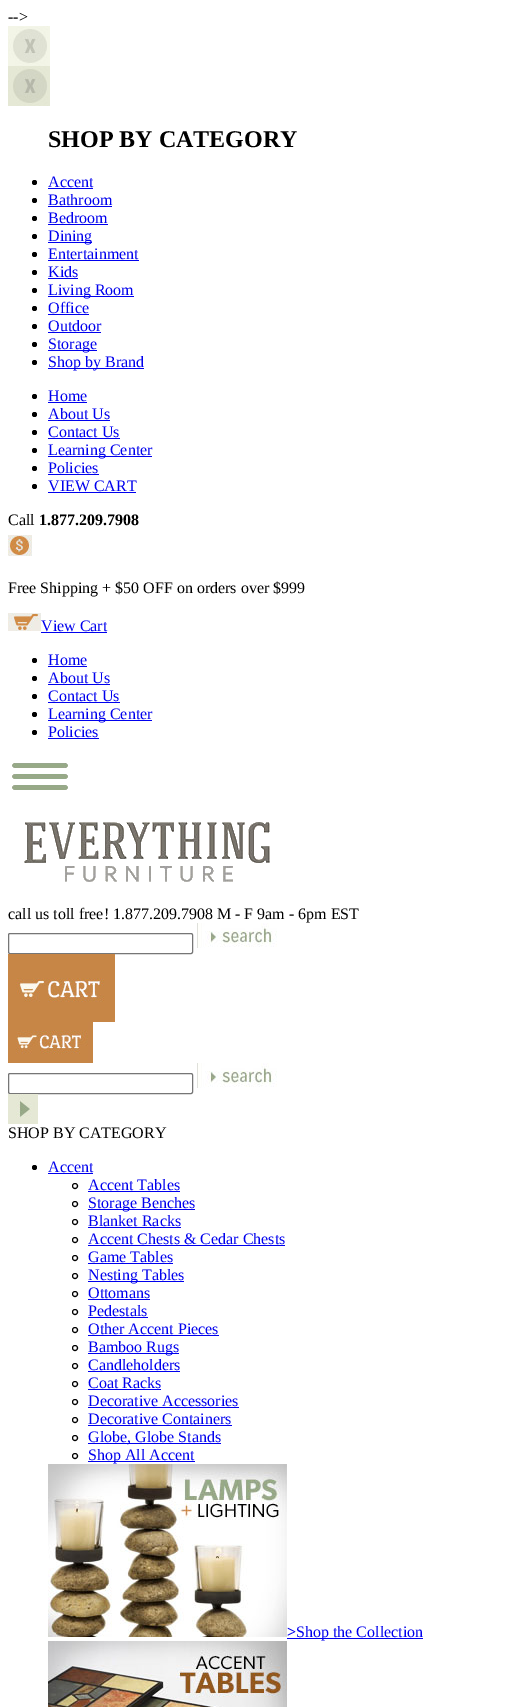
%!PS-Adobe-3.0
%%BoundingBox: 0 0 515 1707
%%LanguageLevel: 3
%%Pages: 1
%%EndComments
%%BeginProlog
/setink { 3 { 255 div 3 1 roll } repeat setrgbcolor } def
/usefont { [ exch dup neg 0 0 3 -1 roll 0 0 ] selectfont } def
/drawtext { setink usefont moveto show } def
/fillbox { setink rectfill } def
/disc { newpath 0 360 arc closepath } def
/rrect { 5 dict begin { /r /h /w /y /x } { exch def } forall
  x r add y moveto x w add y 2 copy h add r arct x w add y h add x 1 index r arct
  x y h add x y r arct x y 2 copy exch w add exch r arct closepath end } def
/drawimage { 5 dict begin { /h /w /y /x /name } { exch def } forall
  gsave x y translate w h scale
  w h 8 [w 0 0 h 0 0] name (r) file false 3 colorimage grestore end } def
%%EndProlog
%%BeginSetup
<< /PageSize [515 1707] >> setpagedevice
%%EndSetup
%%Page: 1 1
0 1707 translate 1 -1 scale
4 setmiterlimit
0 0 515 1707 255 255 255 fillbox
(-->) 8 22 /LiberationSerif-Regular 16 0 0 0 drawtext
(assets/img1.rgb) 8 26 42 40 drawimage
(assets/img2.rgb) 8 66 42 40 drawimage
(SHOP BY CATEGORY) 48 147 /LiberationSerif-Bold 24 0 0 0 drawtext
34.5 182.5 2.5 disc fill
(Accent) 48 187 /LiberationSerif-Regular 16 0 0 238 drawtext
48 188 45 1 0 0 238 fillbox
0 0 0 setink
34.5 200.5 2.5 disc fill
(Bathroom) 48 205 /LiberationSerif-Regular 16 0 0 238 drawtext
48 206 64 1 0 0 238 fillbox
0 0 0 setink
34.5 218.5 2.5 disc fill
(Bedroom) 48 223 /LiberationSerif-Regular 16 0 0 238 drawtext
48 224 60 1 0 0 238 fillbox
0 0 0 setink
34.5 236.5 2.5 disc fill
48 242 44 1 0 0 238 fillbox
(Dining) 48 241 /LiberationSerif-Regular 16 0 0 238 drawtext
0 0 0 setink
34.5 254.5 2.5 disc fill
(Entertainment) 48 259 /LiberationSerif-Regular 16 0 0 238 drawtext
48 260 91 1 0 0 238 fillbox
0 0 0 setink
34.5 272.5 2.5 disc fill
(Kids) 48 277 /LiberationSerif-Regular 16 0 0 238 drawtext
48 278 30 1 0 0 238 fillbox
0 0 0 setink
34.5 290.5 2.5 disc fill
48 296 86 1 0 0 238 fillbox
(Living Room) 48 295 /LiberationSerif-Regular 16 0 0 238 drawtext
0 0 0 setink
34.5 308.5 2.5 disc fill
(Office) 48 313 /LiberationSerif-Regular 16 0 0 238 drawtext
48 314 41 1 0 0 238 fillbox
0 0 0 setink
34.5 326.5 2.5 disc fill
(Outdoor) 48 331 /LiberationSerif-Regular 16 0 0 238 drawtext
48 332 53 1 0 0 238 fillbox
0 0 0 setink
34.5 344.5 2.5 disc fill
48 350 49 1 0 0 238 fillbox
(Storage) 48 349 /LiberationSerif-Regular 16 0 0 238 drawtext
0 0 0 setink
34.5 362.5 2.5 disc fill
48 368 96 1 0 0 238 fillbox
(Shop by Brand) 48 367 /LiberationSerif-Regular 16 0 0 238 drawtext
0 0 0 setink
34.5 396.5 2.5 disc fill
(Home) 48 401 /LiberationSerif-Regular 16 0 0 238 drawtext
48 402 39 1 0 0 238 fillbox
0 0 0 setink
34.5 414.5 2.5 disc fill
(About Us) 48 419 /LiberationSerif-Regular 16 0 0 238 drawtext
48 420 62 1 0 0 238 fillbox
0 0 0 setink
34.5 432.5 2.5 disc fill
(Contact Us) 48 437 /LiberationSerif-Regular 16 0 0 238 drawtext
48 438 72 1 0 0 238 fillbox
0 0 0 setink
34.5 450.5 2.5 disc fill
48 456 104 1 0 0 238 fillbox
(Learning Center) 48 455 /LiberationSerif-Regular 16 0 0 238 drawtext
0 0 0 setink
34.5 468.5 2.5 disc fill
(Policies) 48 473 /LiberationSerif-Regular 16 0 0 238 drawtext
48 474 51 1 0 0 238 fillbox
0 0 0 setink
34.5 486.5 2.5 disc fill
(VIEW CART) 48 491 /LiberationSerif-Regular 16 0 0 238 drawtext
48 492 88 1 0 0 238 fillbox
(Call) 8 525 /LiberationSerif-Regular 16 0 0 0 drawtext
(1.877.209.7908) 39 525 /LiberationSerif-Bold 16 0 0 0 drawtext
(assets/img3.rgb) 8 535 24 21 drawimage
(Free Shipping + $50 OFF on orders over $999) 8 593 /LiberationSerif-Regular 16 0 0 0 drawtext
(assets/img4.rgb) 8 613 33 18 drawimage
(View Cart) 41 631 /LiberationSerif-Regular 16 0 0 238 drawtext
41 632 66 1 0 0 238 fillbox
0 0 0 setink
34.5 660.5 2.5 disc fill
(Home) 48 665 /LiberationSerif-Regular 16 0 0 238 drawtext
48 666 39 1 0 0 238 fillbox
0 0 0 setink
34.5 678.5 2.5 disc fill
(About Us) 48 683 /LiberationSerif-Regular 16 0 0 238 drawtext
48 684 62 1 0 0 238 fillbox
0 0 0 setink
34.5 696.5 2.5 disc fill
(Contact Us) 48 701 /LiberationSerif-Regular 16 0 0 238 drawtext
48 702 72 1 0 0 238 fillbox
0 0 0 setink
34.5 714.5 2.5 disc fill
48 720 104 1 0 0 238 fillbox
(Learning Center) 48 719 /LiberationSerif-Regular 16 0 0 238 drawtext
0 0 0 setink
34.5 732.5 2.5 disc fill
(Policies) 48 737 /LiberationSerif-Regular 16 0 0 238 drawtext
48 738 51 1 0 0 238 fillbox
(assets/img5.rgb) 12 763 56 27 drawimage
(assets/img6.rgb) 24 822 246 60 drawimage
(call us toll free! 1.877.209.7908 M - F 9am - 6pm EST) 8 919 /LiberationSerif-Regular 16 0 0 0 drawtext
118 118 118 setink
8.5 933.5 184 20 1.5 rrect stroke
(assets/img7.rgb) 197 923 80 25 drawimage
(assets/img8.rgb) 8 954 107 68 drawimage
(assets/img9.rgb) 8 1022 85 41 drawimage
8.5 1073.5 184 20 1.5 rrect stroke
(assets/img7.rgb) 197 1063 80 25 drawimage
(assets/img10.rgb) 8 1094 30 30 drawimage
(SHOP BY CATEGORY) 8 1138 /LiberationSerif-Regular 16 0 0 0 drawtext
34.5 1167.5 2.5 disc fill
(Accent) 48 1172 /LiberationSerif-Regular 16 0 0 238 drawtext
48 1173 45 1 0 0 238 fillbox
0 0 0 setink
75 1186 2.5 disc stroke
(Accent Tables) 88 1190 /LiberationSerif-Regular 16 0 0 238 drawtext
88 1191 92 1 0 0 238 fillbox
0 0 0 setink
75 1204 2.5 disc stroke
88 1209 107 1 0 0 238 fillbox
(Storage Benches) 88 1208 /LiberationSerif-Regular 16 0 0 238 drawtext
0 0 0 setink
75 1222 2.5 disc stroke
(Blanket Racks) 88 1226 /LiberationSerif-Regular 16 0 0 238 drawtext
88 1227 93 1 0 0 238 fillbox
0 0 0 setink
75 1240 2.5 disc stroke
(Accent Chests & Cedar Chests) 88 1244 /LiberationSerif-Regular 16 0 0 238 drawtext
88 1245 197 1 0 0 238 fillbox
0 0 0 setink
75 1258 2.5 disc stroke
(Game Tables) 88 1262 /LiberationSerif-Regular 16 0 0 238 drawtext
88 1263 85 1 0 0 238 fillbox
0 0 0 setink
75 1276 2.5 disc stroke
88 1281 96 1 0 0 238 fillbox
(Nesting Tables) 88 1280 /LiberationSerif-Regular 16 0 0 238 drawtext
0 0 0 setink
75 1294 2.5 disc stroke
(Ottomans) 88 1298 /LiberationSerif-Regular 16 0 0 238 drawtext
88 1299 62 1 0 0 238 fillbox
0 0 0 setink
75 1312 2.5 disc stroke
(Pedestals) 88 1316 /LiberationSerif-Regular 16 0 0 238 drawtext
88 1317 60 1 0 0 238 fillbox
0 0 0 setink
75 1330 2.5 disc stroke
(Other Accent Pieces) 88 1334 /LiberationSerif-Regular 16 0 0 238 drawtext
88 1335 131 1 0 0 238 fillbox
0 0 0 setink
75 1348 2.5 disc stroke
88 1353 91 1 0 0 238 fillbox
(Bamboo Rugs) 88 1352 /LiberationSerif-Regular 16 0 0 238 drawtext
0 0 0 setink
75 1366 2.5 disc stroke
(Candleholders) 88 1370 /LiberationSerif-Regular 16 0 0 238 drawtext
88 1371 92 1 0 0 238 fillbox
0 0 0 setink
75 1384 2.5 disc stroke
(Coat Racks) 88 1388 /LiberationSerif-Regular 16 0 0 238 drawtext
88 1389 73 1 0 0 238 fillbox
0 0 0 setink
75 1402 2.5 disc stroke
(Decorative Accessories) 88 1406 /LiberationSerif-Regular 16 0 0 238 drawtext
88 1407 151 1 0 0 238 fillbox
0 0 0 setink
75 1420 2.5 disc stroke
(Decorative Containers) 88 1424 /LiberationSerif-Regular 16 0 0 238 drawtext
88 1425 144 1 0 0 238 fillbox
0 0 0 setink
75 1438 2.5 disc stroke
88 1443 133 1 0 0 238 fillbox
(Globe, Globe Stands) 88 1442 /LiberationSerif-Regular 16 0 0 238 drawtext
0 0 0 setink
75 1456 2.5 disc stroke
88 1461 107 1 0 0 238 fillbox
(Shop All Accent) 88 1460 /LiberationSerif-Regular 16 0 0 238 drawtext
(assets/img11.rgb) 48 1464 239 173 drawimage
(>) 287 1637 /LiberationSerif-Bold 16 0 0 238 drawtext
287 1638 136 1 0 0 238 fillbox
(Shop the Collection) 296 1637 /LiberationSerif-Regular 16 0 0 238 drawtext
(assets/img12.rgb) 48 1641 239 66 drawimage
showpage
%%EOF
